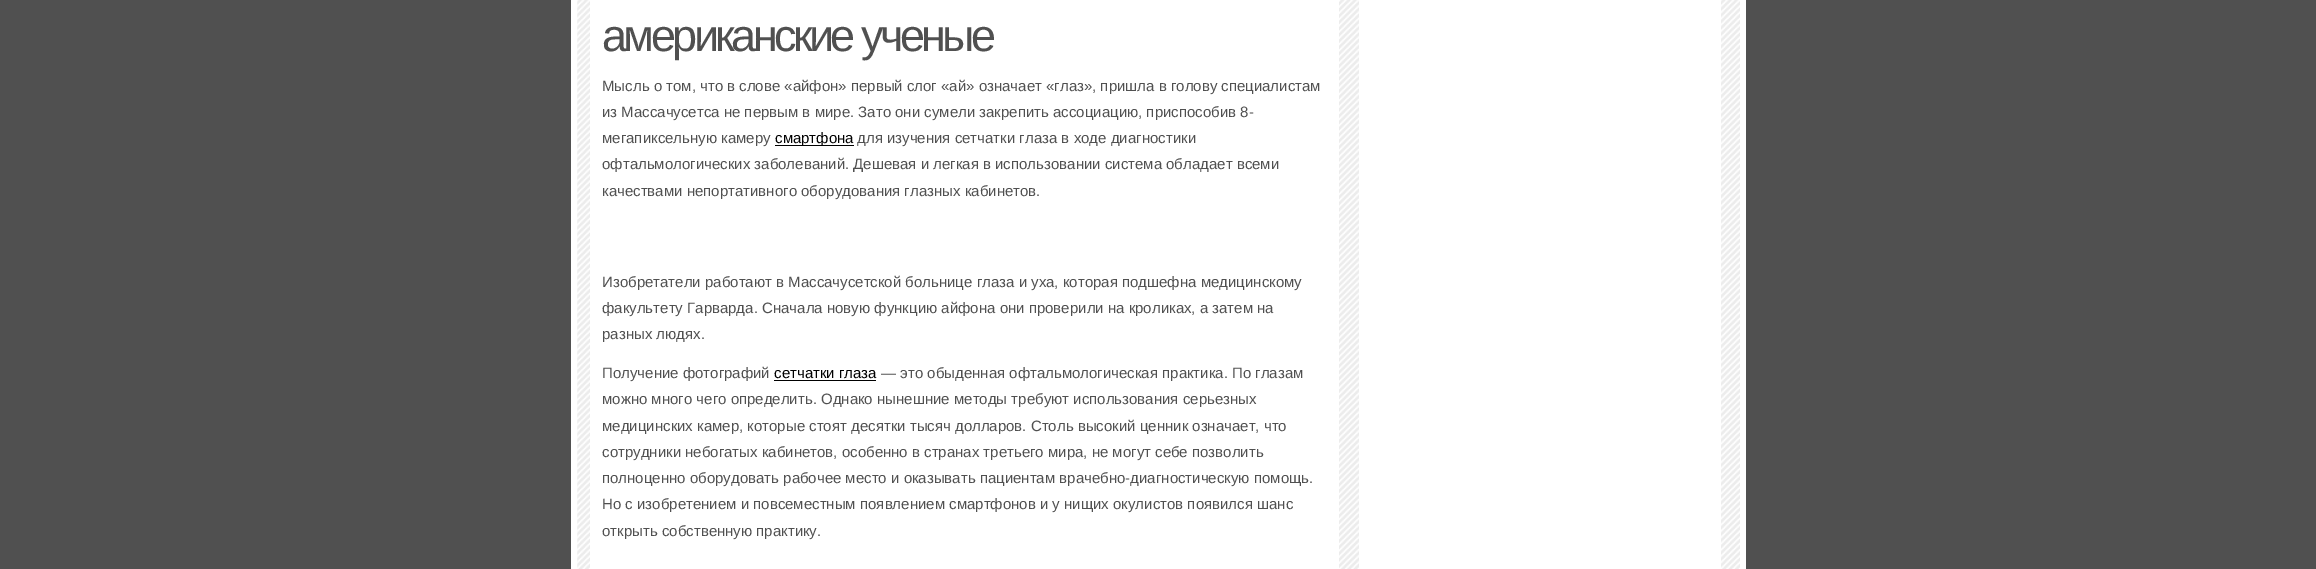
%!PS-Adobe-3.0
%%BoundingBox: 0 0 2316 569
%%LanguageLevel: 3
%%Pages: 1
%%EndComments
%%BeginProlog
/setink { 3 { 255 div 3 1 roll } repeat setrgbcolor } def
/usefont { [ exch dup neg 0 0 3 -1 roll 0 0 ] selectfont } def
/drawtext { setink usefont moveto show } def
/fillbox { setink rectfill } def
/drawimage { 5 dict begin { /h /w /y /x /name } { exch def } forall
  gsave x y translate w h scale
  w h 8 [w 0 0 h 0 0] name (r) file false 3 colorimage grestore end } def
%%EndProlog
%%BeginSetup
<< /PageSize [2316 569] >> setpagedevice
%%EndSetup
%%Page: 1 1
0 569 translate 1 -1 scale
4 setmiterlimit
0 0 2316 569 80 80 80 fillbox
571 0 1175 569 255 255 255 fillbox
(assets/img1.rgb) 577 0 776 569 drawimage
(assets/img2.rgb) 577 0 774 569 drawimage
590 0 749 569 255 255 255 fillbox
/LiberationSans-Regular 45 usefont
80 80 80 setink
602 51 moveto -3.6 0 (американские ученые) ashow
(Мысль о том, что в слове «айфон» первый слог «ай» означает «глаз», пришла в голову специалистам) 602 91 /LiberationSans-Regular 15 80 80 80 drawtext
(из Массачусетса не первым в мире. Зато они сумели закрепить ассоциацию, приспособив 8-) 602 117 /LiberationSans-Regular 15 80 80 80 drawtext
(мегапиксельную камеру) 602 143 /LiberationSans-Regular 15 80 80 80 drawtext
775 145 79 1 0 0 0 fillbox
(смартфона) 775 143 /LiberationSans-Regular 15 0 0 0 drawtext
(для изучения сетчатки глаза в ходе диагностики) 857 143 /LiberationSans-Regular 15 80 80 80 drawtext
(офтальмологических заболеваний. Дешевая и легкая в использовании система обладает всеми) 602 169 /LiberationSans-Regular 15 80 80 80 drawtext
(качествами непортативного оборудования глазных кабинетов.) 602 196 /LiberationSans-Regular 15 80 80 80 drawtext
(Изобретатели работают в Массачусетской больнице глаза и уха, которая подшефна медицинскому) 602 287 /LiberationSans-Regular 15 80 80 80 drawtext
(факультету Гарварда. Сначала новую функцию айфона они проверили на кроликах, а затем на) 602 313 /LiberationSans-Regular 15 80 80 80 drawtext
(разных людях.) 602 339 /LiberationSans-Regular 15 80 80 80 drawtext
(Получение фотографий) 602 378 /LiberationSans-Regular 15 80 80 80 drawtext
(сетчатки глаза) 774 378 /LiberationSans-Regular 15 0 0 0 drawtext
774 380 102 1 0 0 0 fillbox
(— это обыденная офтальмологическая практика. По глазам) 881 378 /LiberationSans-Regular 15 80 80 80 drawtext
(можно много чего определить. Однако нынешние методы требуют использования серьезных) 602 404 /LiberationSans-Regular 15 80 80 80 drawtext
(медицинских камер, которые стоят десятки тысяч долларов. Столь высокий ценник означает, что) 602 431 /LiberationSans-Regular 15 80 80 80 drawtext
(сотрудники небогатых кабинетов, особенно в странах третьего мира, не могут себе позволить) 602 457 /LiberationSans-Regular 15 80 80 80 drawtext
(полноценно оборудовать рабочее место и оказывать пациентам врачебно-диагностическую помощь.) 602 483 /LiberationSans-Regular 15 80 80 80 drawtext
(Но с изобретением и повсеместным появлением смартфонов и у нищих окулистов появился шанс) 602 509 /LiberationSans-Regular 15 80 80 80 drawtext
(открыть собственную практику.) 602 536 /LiberationSans-Regular 15 80 80 80 drawtext
(assets/img3.rgb) 1353 0 387 569 drawimage
1359 0 362 569 255 255 255 fillbox
showpage
%%EOF
